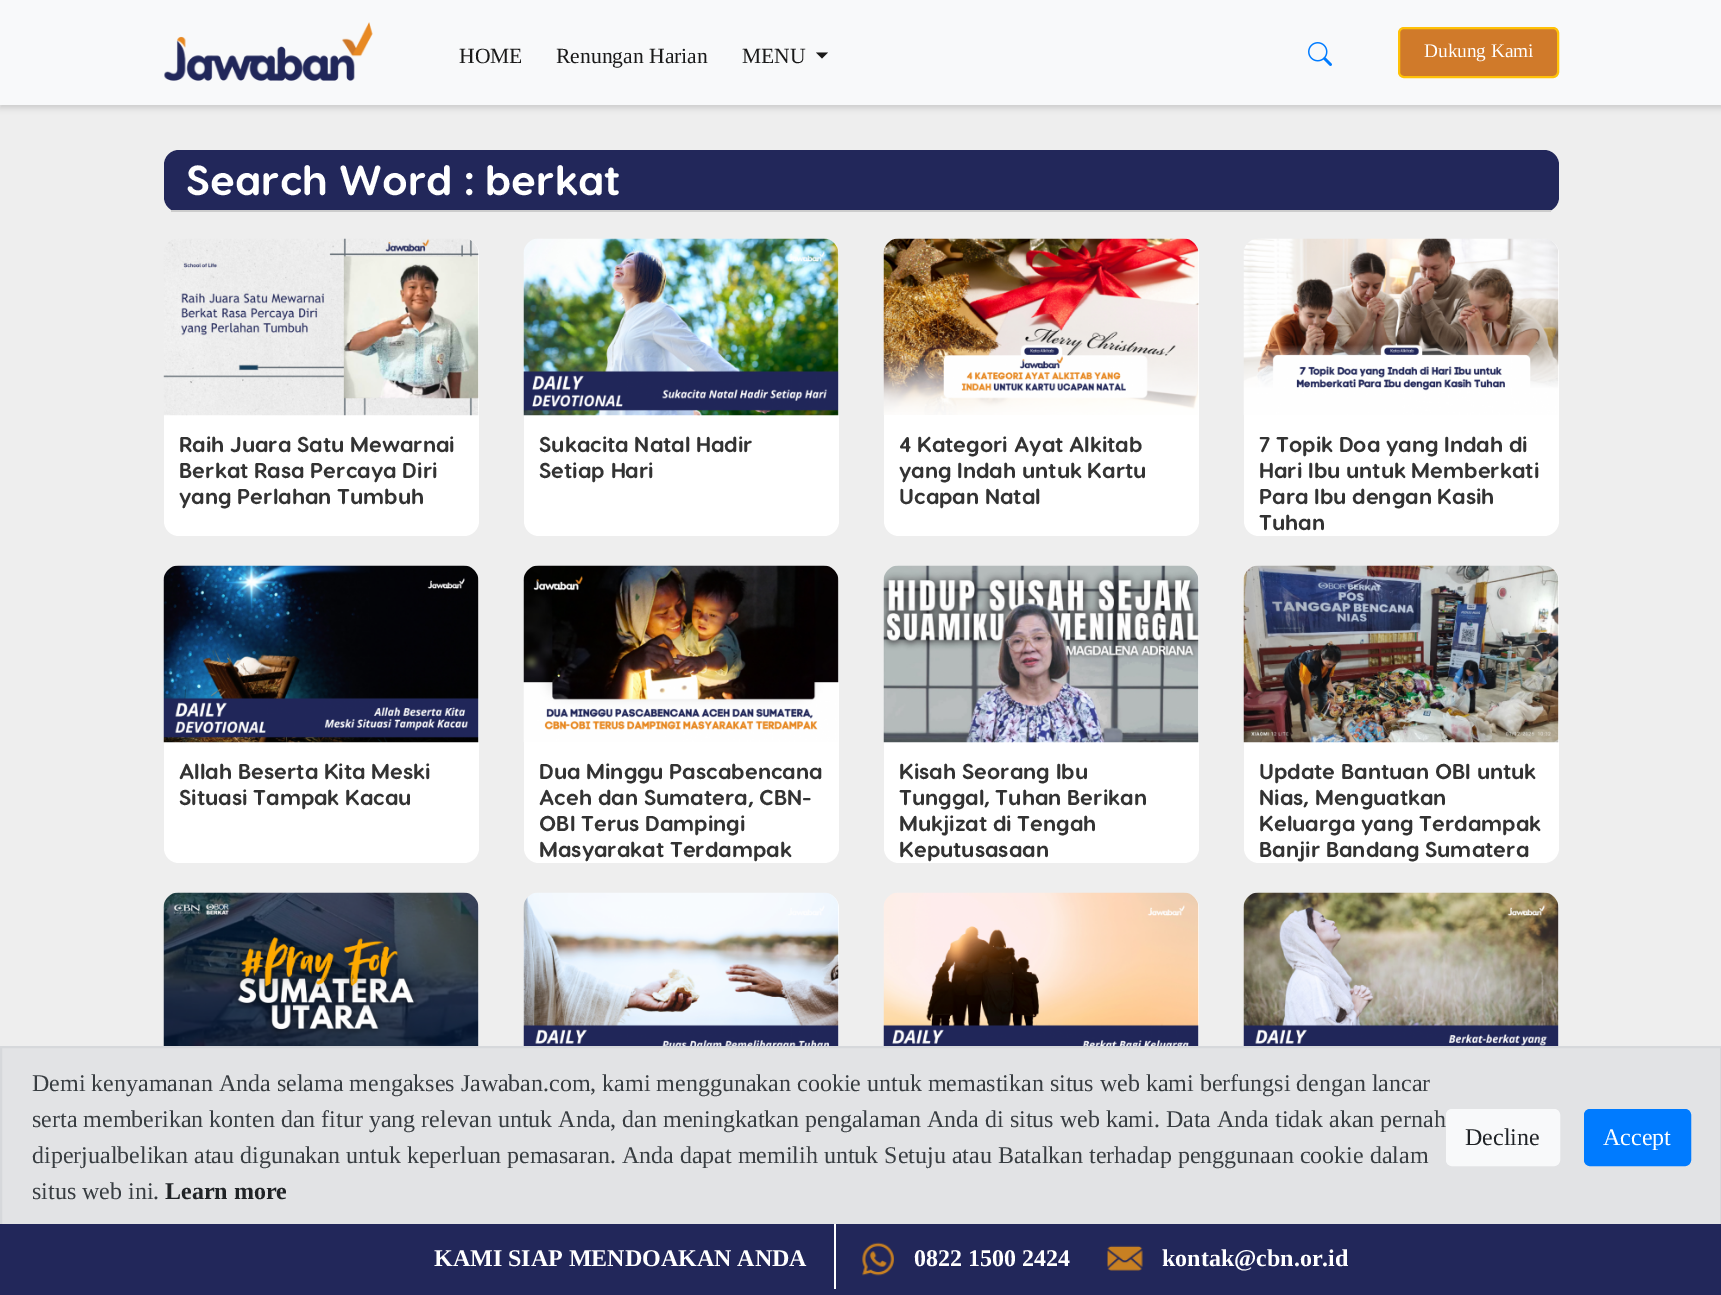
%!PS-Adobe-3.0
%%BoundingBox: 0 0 1721 1295
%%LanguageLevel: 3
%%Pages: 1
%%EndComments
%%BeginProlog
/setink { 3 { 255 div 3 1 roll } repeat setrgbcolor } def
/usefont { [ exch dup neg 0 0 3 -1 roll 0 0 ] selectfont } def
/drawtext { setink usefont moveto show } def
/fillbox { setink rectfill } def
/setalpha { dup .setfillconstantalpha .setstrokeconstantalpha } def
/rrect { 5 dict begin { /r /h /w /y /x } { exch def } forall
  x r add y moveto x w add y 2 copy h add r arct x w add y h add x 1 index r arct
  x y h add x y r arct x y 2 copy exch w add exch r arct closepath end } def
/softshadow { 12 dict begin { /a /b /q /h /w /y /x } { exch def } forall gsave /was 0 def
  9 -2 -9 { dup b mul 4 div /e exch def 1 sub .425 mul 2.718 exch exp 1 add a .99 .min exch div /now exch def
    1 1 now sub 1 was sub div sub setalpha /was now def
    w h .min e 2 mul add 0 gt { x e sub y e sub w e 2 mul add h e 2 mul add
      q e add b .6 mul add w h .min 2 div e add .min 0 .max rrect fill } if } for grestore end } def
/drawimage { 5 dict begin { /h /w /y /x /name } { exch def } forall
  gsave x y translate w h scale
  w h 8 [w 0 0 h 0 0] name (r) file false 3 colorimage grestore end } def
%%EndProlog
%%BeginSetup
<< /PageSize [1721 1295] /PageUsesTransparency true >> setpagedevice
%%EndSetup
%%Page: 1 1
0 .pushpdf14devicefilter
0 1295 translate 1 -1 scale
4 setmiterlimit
0 0 1721 1295 238 238 238 fillbox
0 0 0 setink
0 3 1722 105 0 3 0.15 softshadow
0 0 1721 105 248 249 250 fillbox
(assets/img1.rgb) 164 22 209 59 drawimage
(HOME) 459 63 /LiberationSerif-Regular 21.6 25 25 25 drawtext
(Renungan Harian) 556 63 /LiberationSerif-Regular 21.6 25 25 25 drawtext
(MENU) 742 63 /LiberationSerif-Regular 21.6 25 25 25 drawtext
816 52.5 moveto 828 52.5 lineto 822 58.5 lineto closepath fill
(assets/img2.rgb) 1308 42 24 24 drawimage
208 122 42 setink
1399 28 159 49 5 rrect gsave fill grestore
255 193 7 setink
2 setlinewidth
stroke
(Dukung Kami) 1424 57 /LiberationSerif-Regular 19.25 255 255 255 drawtext
34 39 90 setink
164 150 1395 62 15 rrect fill
171 210 1380 2 204 204 204 fillbox
(Search Word : berkat) 186 195 /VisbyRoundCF-Bold 42 255 255 255 drawtext
164 239 315 297 15 rrect fill
(assets/img3.rgb) 163 238 316 178 drawimage
(Raih Juara Satu Mewarnai) 179 452 /VisbyRoundCF-Bold 21.6 51 51 51 drawtext
(Berkat Rasa Percaya Diri) 179 478 /VisbyRoundCF-Bold 21.6 51 51 51 drawtext
(yang Perlahan Tumbuh) 179 504 /VisbyRoundCF-Bold 21.6 51 51 51 drawtext
255 255 255 setink
524 239 315 297 15 rrect fill
(assets/img4.rgb) 523 238 316 178 drawimage
(Sukacita Natal Hadir) 539 452 /VisbyRoundCF-Bold 21.6 51 51 51 drawtext
(Setiap Hari) 539 478 /VisbyRoundCF-Bold 21.6 51 51 51 drawtext
255 255 255 setink
884 239 315 297 15 rrect fill
(assets/img5.rgb) 883 238 316 177 drawimage
(4 Kategori Ayat Alkitab) 899 452 /VisbyRoundCF-Bold 21.6 51 51 51 drawtext
(yang Indah untuk Kartu) 899 478 /VisbyRoundCF-Bold 21.6 51 51 51 drawtext
(Ucapan Natal) 899 504 /VisbyRoundCF-Bold 21.6 51 51 51 drawtext
255 255 255 setink
1244 239 315 297 15 rrect fill
(assets/img6.rgb) 1243 238 316 177 drawimage
(7 Topik Doa yang Indah di) 1259 452 /VisbyRoundCF-Bold 21.6 51 51 51 drawtext
(Hari Ibu untuk Memberkati) 1259 478 /VisbyRoundCF-Bold 21.6 51 51 51 drawtext
(Para Ibu dengan Kasih) 1259 504 /VisbyRoundCF-Bold 21.6 51 51 51 drawtext
(Tuhan) 1259 530 /VisbyRoundCF-Bold 21.6 51 51 51 drawtext
255 255 255 setink
164 566 315 297 15 rrect fill
(assets/img7.rgb) 163 565 316 178 drawimage
(Allah Beserta Kita Meski) 179 779 /VisbyRoundCF-Bold 21.6 51 51 51 drawtext
(Situasi Tampak Kacau) 179 805 /VisbyRoundCF-Bold 21.6 51 51 51 drawtext
255 255 255 setink
524 566 315 297 15 rrect fill
(assets/img8.rgb) 523 565 316 177 drawimage
(Dua Minggu Pascabencana) 539 779 /VisbyRoundCF-Bold 21.6 51 51 51 drawtext
(Aceh dan Sumatera, CBN-) 539 805 /VisbyRoundCF-Bold 21.6 51 51 51 drawtext
(OBI Terus Dampingi) 539 831 /VisbyRoundCF-Bold 21.6 51 51 51 drawtext
(Masyarakat Terdampak) 539 857 /VisbyRoundCF-Bold 21.6 51 51 51 drawtext
255 255 255 setink
884 566 315 297 15 rrect fill
(assets/img9.rgb) 883 565 316 178 drawimage
(Kisah Seorang Ibu) 899 779 /VisbyRoundCF-Bold 21.6 51 51 51 drawtext
(Tunggal, Tuhan Berikan) 899 805 /VisbyRoundCF-Bold 21.6 51 51 51 drawtext
(Mukjizat di Tengah) 899 831 /VisbyRoundCF-Bold 21.6 51 51 51 drawtext
(Keputusasaan) 899 857 /VisbyRoundCF-Bold 21.6 51 51 51 drawtext
255 255 255 setink
1244 566 315 297 15 rrect fill
(assets/img10.rgb) 1243 565 316 178 drawimage
(Update Bantuan OBI untuk) 1259 779 /VisbyRoundCF-Bold 21.6 51 51 51 drawtext
(Nias, Menguatkan) 1259 805 /VisbyRoundCF-Bold 21.6 51 51 51 drawtext
(Keluarga yang Terdampak) 1259 831 /VisbyRoundCF-Bold 21.6 51 51 51 drawtext
(Banjir Bandang Sumatera) 1259 857 /VisbyRoundCF-Bold 21.6 51 51 51 drawtext
255 255 255 setink
164 893 315 297 15 rrect fill
(assets/img11.rgb) 163 892 316 154 drawimage
524 893 315 297 15 rrect fill
(assets/img12.rgb) 523 892 316 154 drawimage
884 893 315 297 15 rrect fill
(assets/img13.rgb) 883 892 316 154 drawimage
1244 893 315 297 15 rrect fill
(assets/img14.rgb) 1243 892 316 154 drawimage
2 1048 1718 176 226 227 229 fillbox
214 216 219 setink
1 1047 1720 181 rectstroke
(Demi kenyamanan Anda selama mengakses Jawaban.com, kami menggunakan cookie untuk memastikan situs web kami berfungsi dengan lancar) 32 1091 /LiberationSerif-Regular 24 56 61 65 drawtext
(serta memberikan konten dan fitur yang relevan untuk Anda, dan meningkatkan pengalaman Anda di situs web kami. Data Anda tidak akan pernah) 32 1127 /LiberationSerif-Regular 24 56 61 65 drawtext
(diperjualbelikan atau digunakan untuk keperluan pemasaran. Anda dapat memilih untuk Setuju atau Batalkan terhadap penggunaan cookie dalam) 32 1163 /LiberationSerif-Regular 24 56 61 65 drawtext
(situs web ini.) 32 1199 /LiberationSerif-Regular 24 56 61 65 drawtext
(Learn more) 165 1199 /LiberationSerif-Bold 24 32 35 38 drawtext
248 249 250 setink
1447 1110 112 55 5 rrect gsave fill grestore
stroke
(Decline) 1465 1145 /LiberationSerif-Regular 24 32 35 38 drawtext
0 123 255 setink
1585 1110 105 55 5 rrect gsave fill grestore
stroke
(Accept) 1603 1145 /LiberationSerif-Regular 24 255 255 255 drawtext
0 1224 1721 71 34 39 90 fillbox
834 1224 2 65 255 255 255 fillbox
(KAMI SIAP MENDOAKAN ANDA) 434 1266 /LiberationSerif-Bold 24 255 255 255 drawtext
(assets/img15.rgb) 862 1242 32 34 drawimage
(0822 1500 2424) 914 1266 /LiberationSerif-Bold 24 255 255 255 drawtext
(assets/img16.rgb) 1107 1245 36 26 drawimage
(kontak@cbn.or.id) 1162 1266 /LiberationSerif-Bold 24 255 255 255 drawtext
.poppdf14devicefilter showpage
%%EOF
